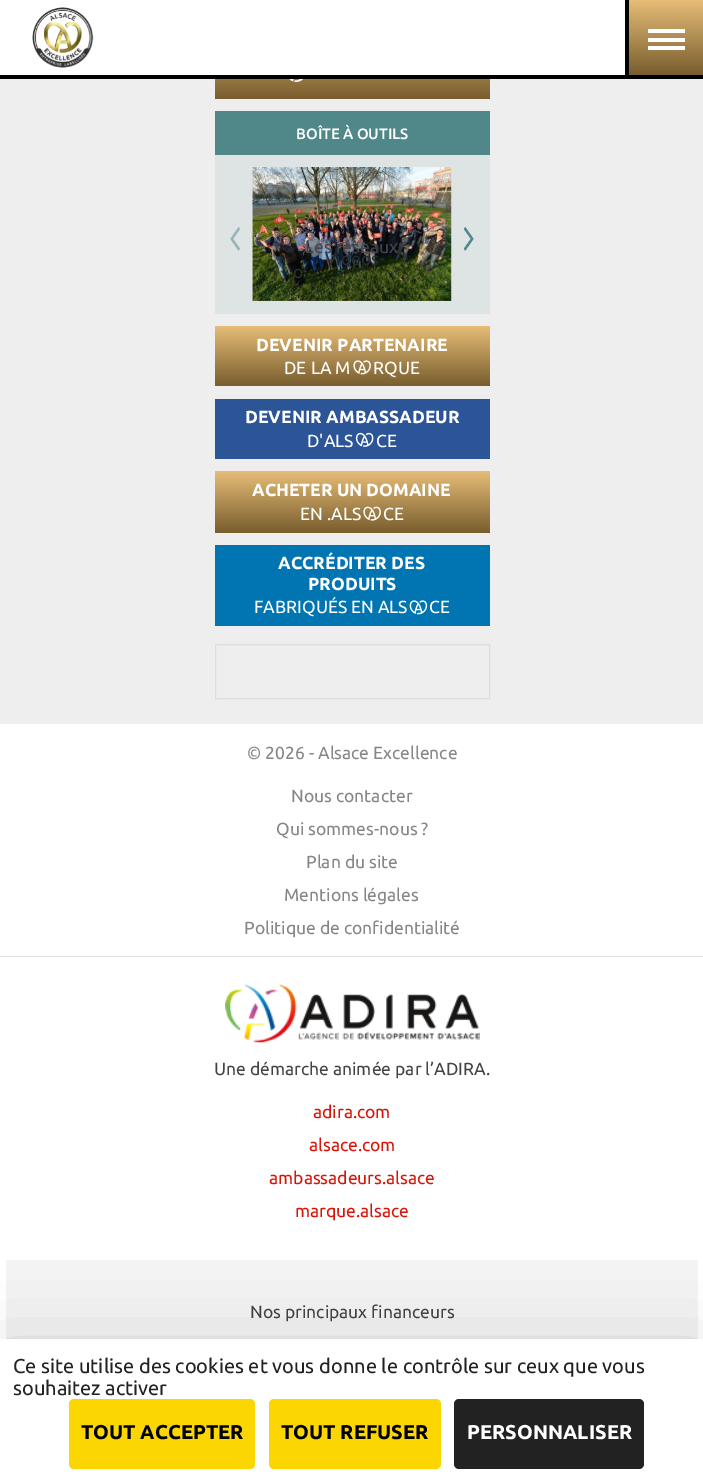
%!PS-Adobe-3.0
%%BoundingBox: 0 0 703 1481
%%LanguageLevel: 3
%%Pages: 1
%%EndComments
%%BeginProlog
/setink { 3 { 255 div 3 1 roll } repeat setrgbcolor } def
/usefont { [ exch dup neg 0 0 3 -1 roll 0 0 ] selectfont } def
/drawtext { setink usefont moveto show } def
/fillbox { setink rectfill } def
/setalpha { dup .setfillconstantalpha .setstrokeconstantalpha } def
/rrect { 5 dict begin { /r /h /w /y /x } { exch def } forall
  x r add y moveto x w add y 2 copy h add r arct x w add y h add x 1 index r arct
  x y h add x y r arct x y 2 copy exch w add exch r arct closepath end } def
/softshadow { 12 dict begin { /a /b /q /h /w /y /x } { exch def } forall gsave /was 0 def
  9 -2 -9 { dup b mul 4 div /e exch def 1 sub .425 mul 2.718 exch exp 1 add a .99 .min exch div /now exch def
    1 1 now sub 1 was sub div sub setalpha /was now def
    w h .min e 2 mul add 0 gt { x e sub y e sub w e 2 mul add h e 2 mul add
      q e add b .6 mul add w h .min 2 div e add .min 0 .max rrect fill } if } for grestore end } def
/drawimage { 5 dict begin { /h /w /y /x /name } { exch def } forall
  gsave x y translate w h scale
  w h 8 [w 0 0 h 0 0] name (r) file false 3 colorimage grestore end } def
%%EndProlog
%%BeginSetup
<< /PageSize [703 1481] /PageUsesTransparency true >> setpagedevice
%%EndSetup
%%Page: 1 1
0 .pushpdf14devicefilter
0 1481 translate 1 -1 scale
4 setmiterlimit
0 0 703 1481 238 238 238 fillbox
0 0 625 75 255 255 255 fillbox
0 75 703 4 0 0 0 fillbox
(assets/img1.rgb) 32 7 62 61 drawimage
625 0 4 75 0 0 0 fillbox
gsave 629 0 moveto 703 0 lineto 703 75 lineto 629 75 lineto closepath clip newpath
<< /ShadingType 2 /ColorSpace /DeviceRGB /Coords [666 0 666 75] /Extend [true true] /Function << /FunctionType 2 /Domain [0 1] /C0 [0.906 0.741 0.467] /C1 [0.471 0.365 0.18] /N 1 >> >> shfill grestore
648 38 37 4 255 255 255 fillbox
648 29 37 4 255 255 255 fillbox
648 46 37 4 255 255 255 fillbox
gsave 215 79 moveto 490 79 lineto 490 99 lineto 215 99 lineto closepath clip newpath
<< /ShadingType 2 /ColorSpace /DeviceRGB /Coords [353 22 353 99] /Extend [true true] /Function << /FunctionType 2 /Domain [0 1] /C0 [0.906 0.741 0.467] /C1 [0.471 0.365 0.18] /N 1 >> >> shfill grestore
(assets/img2.rgb) 289 79 15 3 drawimage
215 111 275 44 80 135 137 fillbox
(BOÎTE À OUTILS) 296 139 /Ubuntu-Medium 15 255 255 255 drawtext
215 155 275 159 222 228 228 fillbox
(assets/img3.rgb) 230 227 10 24 drawimage
(assets/img4.rgb) 252 167 200 134 drawimage
(Les réseaux) 305 253 /Ubuntu-Regular 17.5 69 69 77 drawtext
(o) 293 278 /Ubuntu-Regular 17.5 42 55 23 drawtext
(Vidéos) 325 265 /Ubuntu-Regular 17.5 37 46 50 drawtext
(assets/img5.rgb) 463 227 11 24 drawimage
gsave 215 326 moveto 490 326 lineto 490 386 lineto 215 386 lineto closepath clip newpath
<< /ShadingType 2 /ColorSpace /DeviceRGB /Coords [353 326 353 386] /Extend [true true] /Function << /FunctionType 2 /Domain [0 1] /C0 [0.906 0.741 0.467] /C1 [0.471 0.365 0.18] /N 1 >> >> shfill grestore
(DEVENIR PARTENAIRE) 256 351 /Ubuntu-Bold 17.5 255 255 255 drawtext
(DE LA M) 284 374 /Ubuntu-Regular 17.5 255 255 255 drawtext
(assets/img6.rgb) 353 360 18 15 drawimage
(RQUE) 373 374 /Ubuntu-Regular 17.5 255 255 255 drawtext
215 399 275 60 44 85 152 fillbox
(DEVENIR AMBASSADEUR) 245 423 /Ubuntu-Bold 17.5 255 255 255 drawtext
(D'ALS) 307 447 /Ubuntu-Regular 17.5 255 255 255 drawtext
(assets/img7.rgb) 355 432 19 15 drawimage
(CE) 376 447 /Ubuntu-Regular 17.5 255 255 255 drawtext
gsave 215 471 moveto 490 471 lineto 490 533 lineto 215 533 lineto closepath clip newpath
<< /ShadingType 2 /ColorSpace /DeviceRGB /Coords [353 471 353 533] /Extend [true true] /Function << /FunctionType 2 /Domain [0 1] /C0 [0.906 0.741 0.467] /C1 [0.471 0.365 0.18] /N 1 >> >> shfill grestore
(ACHETER UN DOMAINE) 252 496 /Ubuntu-Bold 17.5 255 255 255 drawtext
(EN .ALS) 300 520 /Ubuntu-Regular 17.5 255 255 255 drawtext
(assets/img8.rgb) 363 506 18 15 drawimage
(CE) 383 520 /Ubuntu-Regular 17.5 255 255 255 drawtext
215 545 275 81 0 117 177 fillbox
(ACCRÉDITER DES) 278 569 /Ubuntu-Bold 17.5 255 255 255 drawtext
(PRODUITS) 308 590 /Ubuntu-Bold 17.5 255 255 255 drawtext
(FABRIQUÉS EN ALS) 254 613 /Ubuntu-Regular 17.5 255 255 255 drawtext
(assets/img9.rgb) 409 600 19 15 drawimage
(CE) 429 613 /Ubuntu-Regular 17.5 255 255 255 drawtext
221 221 221 setink
215.5 644.5 274 54 rectstroke
0 724 703 615 255 255 255 fillbox
(© 2026 - Alsace Excellence) 247 759 /Ubuntu-Regular 17.5 134 134 134 drawtext
(Nous contacter) 291 802 /Ubuntu-Regular 17.5 134 134 134 drawtext
(Qui sommes-nous ?) 276 835 /Ubuntu-Regular 17.5 134 134 134 drawtext
(Plan du site) 306 868 /Ubuntu-Regular 17.5 134 134 134 drawtext
(Mentions légales) 284 901 /Ubuntu-Regular 17.5 134 134 134 drawtext
(Politique de confidentialité) 244 934 /Ubuntu-Regular 17.5 134 134 134 drawtext
0 956 703 1 221 221 221 fillbox
(assets/img10.rgb) 225 984 255 59 drawimage
(Une démarche animée par l’ADIRA.) 214 1075 /Ubuntu-Regular 17.5 68 68 68 drawtext
(adira.com) 313 1118 /Ubuntu-Regular 17.5 215 20 7 drawtext
(alsace.com) 309 1151 /Ubuntu-Regular 17.5 215 20 7 drawtext
(ambassadeurs.alsace) 269 1184 /Ubuntu-Regular 17.5 215 20 7 drawtext
(marque.alsace) 295 1217 /Ubuntu-Regular 17.5 215 20 7 drawtext
6 1260 692 79 243 243 243 fillbox
(Nos principaux financeurs) 250 1318 /Ubuntu-Regular 17.5 68 68 68 drawtext
0 0 0 setink
0 1364 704 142 0 37.5 0.25 softshadow
0 1339 703 142 255 255 255 fillbox
(Ce site utilise des cookies et vous donne le contrôle sur ceux que vous) 13 1373 /Ubuntu-Regular 20 34 34 34 drawtext
(souhaitez activer) 13 1395 /Ubuntu-Regular 20 34 34 34 drawtext
251 214 0 setink
69 1399 186 70 5 rrect fill
(TOUT ACCEPTER) 81 1439 /Ubuntu-Bold 20 0 0 0 drawtext
251 214 0 setink
269 1399 172 70 5 rrect fill
(TOUT REFUSER) 281 1439 /Ubuntu-Bold 20 0 0 0 drawtext
34 34 34 setink
454 1399 190 70 5 rrect fill
(PERSONNALISER) 467 1439 /Ubuntu-Bold 20 255 255 255 drawtext
.poppdf14devicefilter showpage
%%EOF
